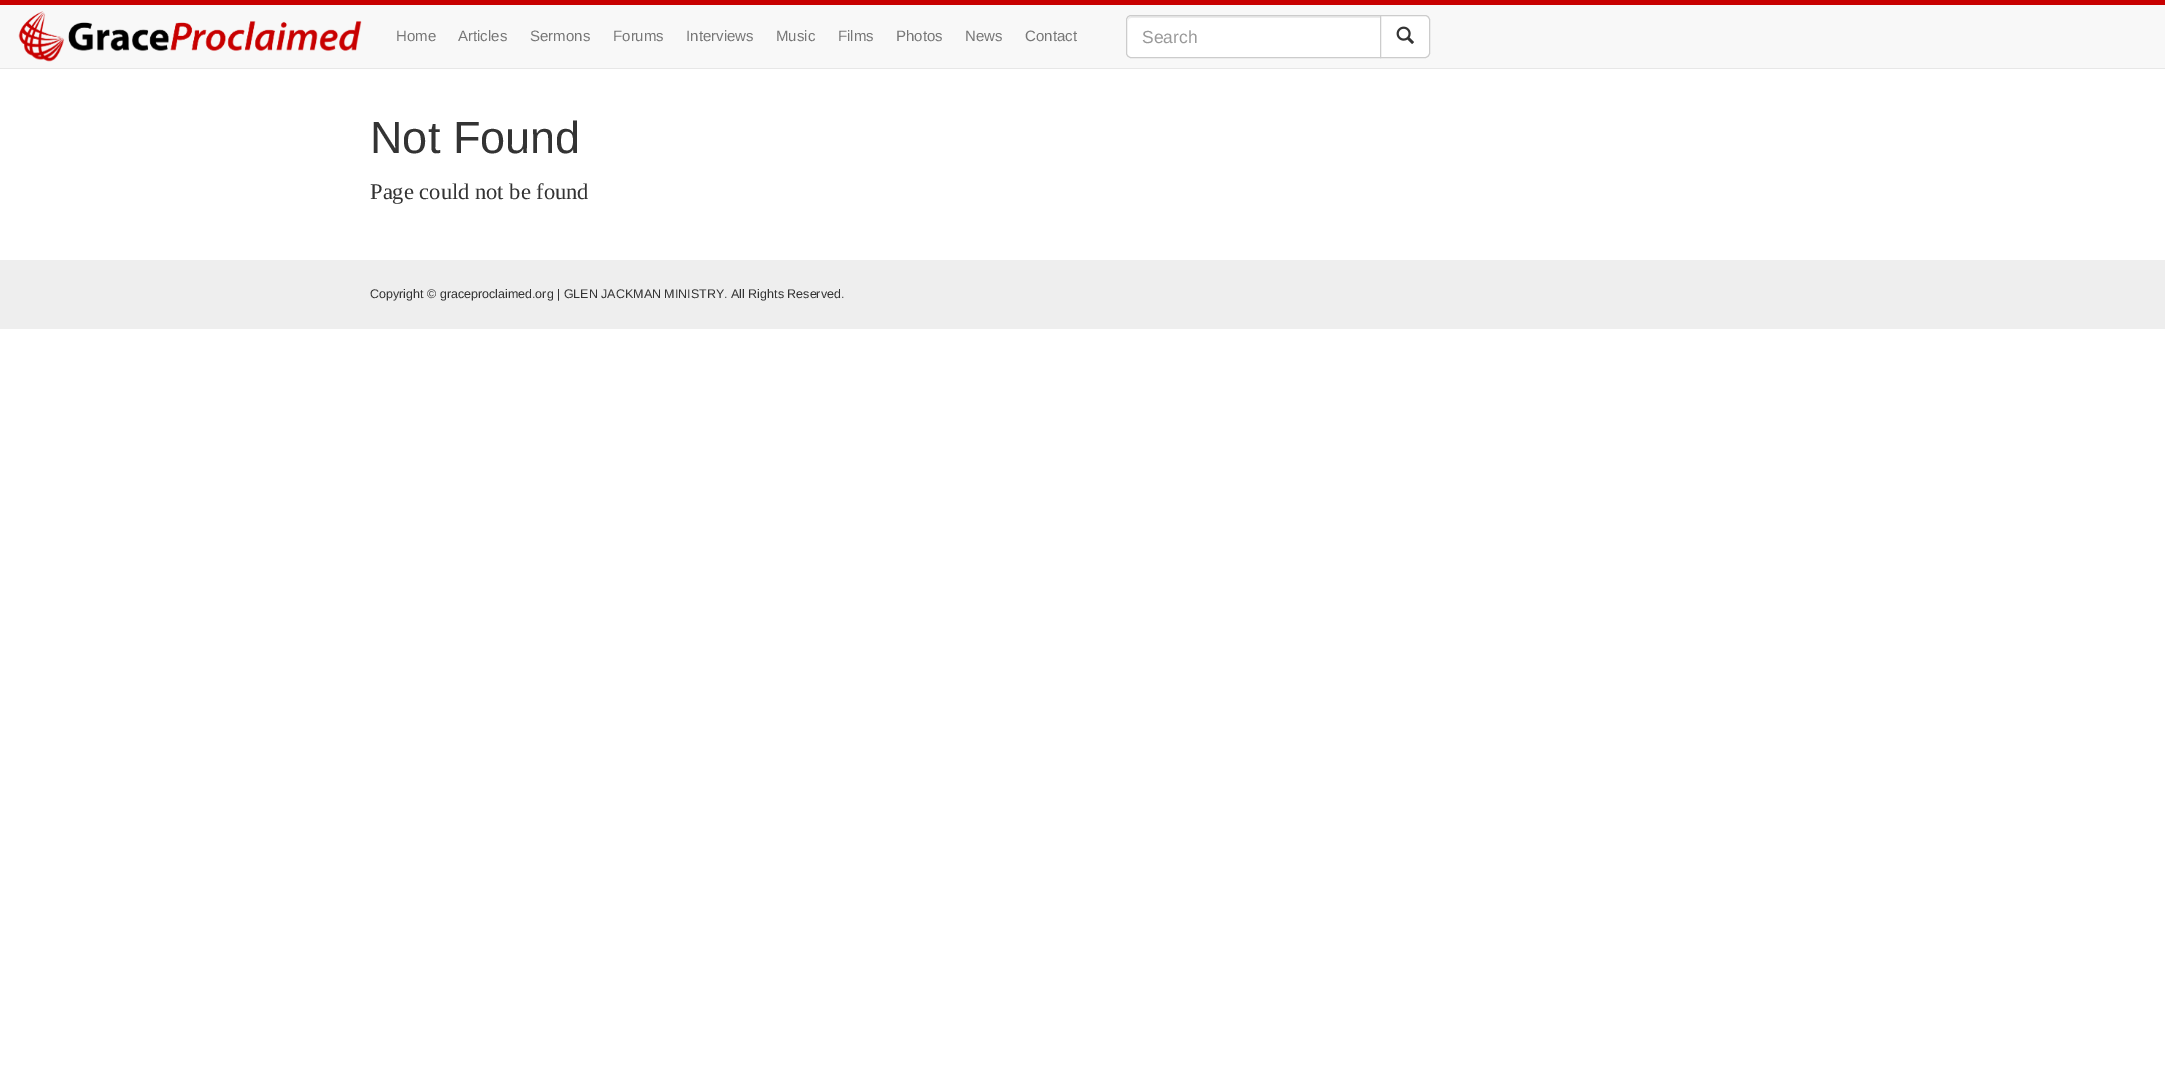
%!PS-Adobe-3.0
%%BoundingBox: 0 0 2165 1084
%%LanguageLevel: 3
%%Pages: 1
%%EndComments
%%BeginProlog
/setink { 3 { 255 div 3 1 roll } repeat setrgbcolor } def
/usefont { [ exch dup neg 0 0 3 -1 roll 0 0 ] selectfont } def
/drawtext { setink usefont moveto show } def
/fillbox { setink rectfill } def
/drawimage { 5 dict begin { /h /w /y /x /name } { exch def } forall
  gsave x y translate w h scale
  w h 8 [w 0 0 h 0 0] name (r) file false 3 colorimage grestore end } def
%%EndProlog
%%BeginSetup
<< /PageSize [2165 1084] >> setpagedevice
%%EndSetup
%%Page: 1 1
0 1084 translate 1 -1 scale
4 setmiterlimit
0 0 2165 1084 255 255 255 fillbox
0 5 2165 63 248 248 248 fillbox
0 68 2165 1 231 231 231 fillbox
0 0 2165 5 200 0 0 fillbox
(assets/img1.rgb) 18 11 344 51 drawimage
(Home) 396 41 /LiberationSans-Regular 15 119 119 119 drawtext
(Articles) 458 41 /LiberationSans-Regular 15 119 119 119 drawtext
(Sermons) 530 41 /LiberationSans-Regular 15 119 119 119 drawtext
(Forums) 613 41 /LiberationSans-Regular 15 119 119 119 drawtext
(Interviews) 686 41 /LiberationSans-Regular 15 119 119 119 drawtext
(Music) 776 41 /LiberationSans-Regular 15 119 119 119 drawtext
(Films) 838 41 /LiberationSans-Regular 15 119 119 119 drawtext
(Photos) 896 41 /LiberationSans-Regular 15 119 119 119 drawtext
(News) 965 41 /LiberationSans-Regular 15 119 119 119 drawtext
(Contact) 1025 41 /LiberationSans-Regular 15 119 119 119 drawtext
255 255 255 setink
1131 15 moveto 1381 15 lineto 1381 58 lineto 1131 58 lineto 1128 58 1126 56 1126 53 curveto 1126 20 lineto 1126 17 1128 15 1131 15 curveto closepath fill
236 236 236 setink
1131 18 moveto 1380 18 lineto 1380 16 lineto 1132 16 lineto 1130 16 1128 18 1128 20 curveto 1128 21 lineto 1128 19 1129 18 1131 18 curveto closepath fill
204 204 204 setink
1131 15.5 moveto 1380.5 15.5 lineto 1380.5 57.5 lineto 1131 57.5 lineto 1128.5 57.5 1126.5 55.5 1126.5 53 curveto 1126.5 20 lineto 1126.5 17.5 1128.5 15.5 1131 15.5 curveto closepath stroke
(Search) 1142 43 /LiberationSans-Regular 17.5 153 153 153 drawtext
255 255 255 setink
1380.5 15.5 moveto 1425 15.5 lineto 1427.5 15.5 1429.5 17.5 1429.5 20 curveto 1429.5 53 lineto 1429.5 55.5 1427.5 57.5 1425 57.5 curveto 1380.5 57.5 lineto closepath gsave fill grestore
204 204 204 setink
stroke
(assets/img2.rgb) 1396 26 18 18 drawimage
(Not Found) 370 153 /LiberationSans-Regular 45 51 51 51 drawtext
(Page could not be found) 370 199 /LiberationSerif-Regular 22.5 51 51 51 drawtext
0 260 2165 69 238 238 238 fillbox
(Copyright © graceproclaimed.org | GLEN JACKMAN MINISTRY. All Rights Reserved.) 370 298 /LiberationSans-Regular 12.5 51 51 51 drawtext
showpage
%%EOF
